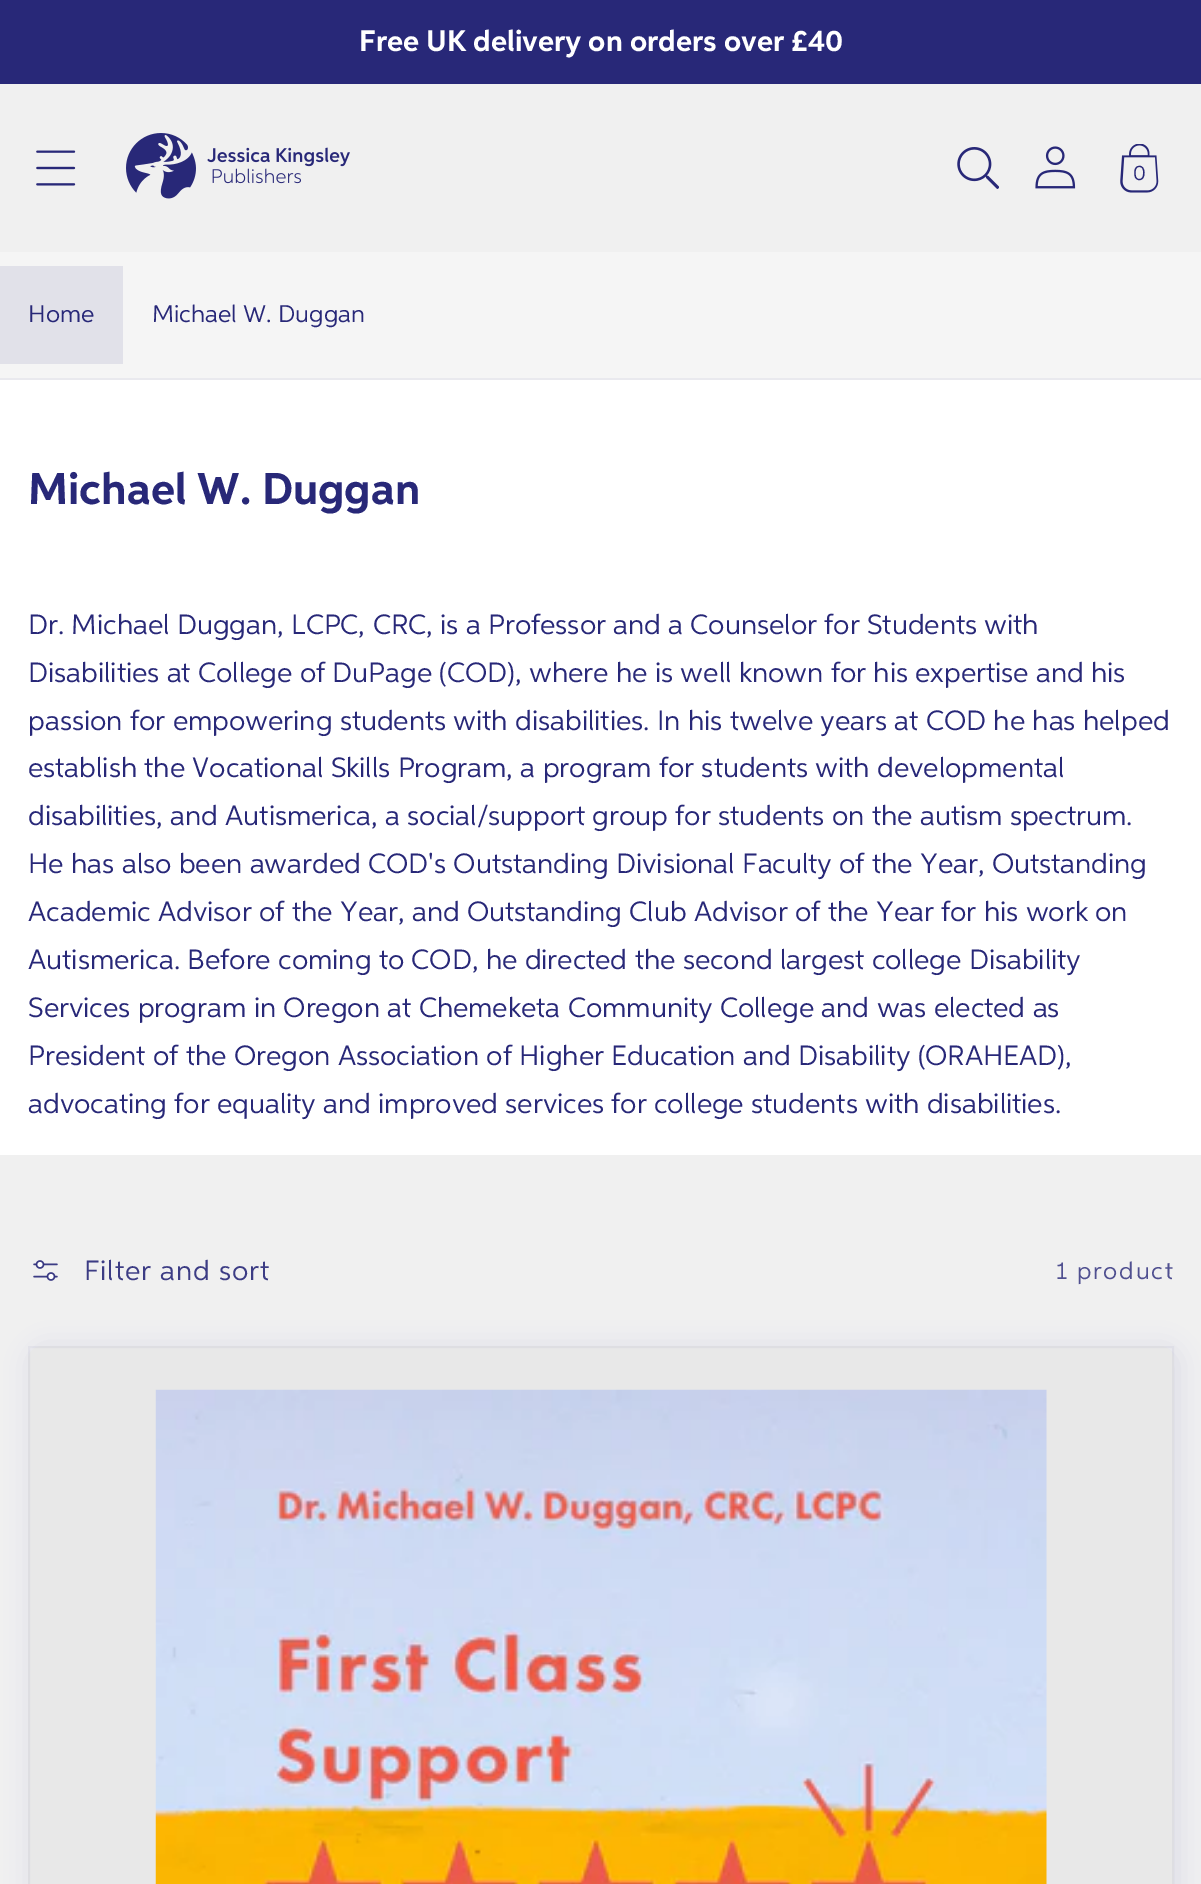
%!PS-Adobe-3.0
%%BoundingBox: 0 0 1201 1884
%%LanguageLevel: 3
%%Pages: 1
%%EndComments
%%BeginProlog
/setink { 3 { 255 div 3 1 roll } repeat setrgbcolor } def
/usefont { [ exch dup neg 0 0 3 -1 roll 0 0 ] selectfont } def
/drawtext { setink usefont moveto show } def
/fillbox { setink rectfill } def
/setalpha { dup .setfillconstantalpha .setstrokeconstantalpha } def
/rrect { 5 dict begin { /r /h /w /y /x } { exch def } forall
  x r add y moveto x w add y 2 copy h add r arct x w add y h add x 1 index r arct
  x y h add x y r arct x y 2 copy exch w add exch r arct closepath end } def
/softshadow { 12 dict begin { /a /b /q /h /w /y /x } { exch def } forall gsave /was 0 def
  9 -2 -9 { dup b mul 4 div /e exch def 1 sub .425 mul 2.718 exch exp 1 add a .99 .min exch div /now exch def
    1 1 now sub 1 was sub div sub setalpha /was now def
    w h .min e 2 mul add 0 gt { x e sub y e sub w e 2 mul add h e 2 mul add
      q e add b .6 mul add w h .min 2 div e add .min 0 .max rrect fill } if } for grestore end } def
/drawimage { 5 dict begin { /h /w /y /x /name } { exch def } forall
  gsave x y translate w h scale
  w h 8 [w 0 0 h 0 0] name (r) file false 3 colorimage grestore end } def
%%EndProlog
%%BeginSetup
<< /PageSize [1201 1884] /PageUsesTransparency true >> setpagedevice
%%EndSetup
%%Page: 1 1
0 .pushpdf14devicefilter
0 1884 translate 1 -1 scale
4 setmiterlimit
0 0 1201 1884 240 240 240 fillbox
0 0 1201 84 40 40 120 fillbox
(Free UK delivery on orders over £40) 359 51 /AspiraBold-Bold 29.75 255 255 255 drawtext
(assets/img1.rgb) 36 150 40 36 drawimage
(assets/img2.rgb) 126 133 224 66 drawimage
(assets/img3.rgb) 957 147 42 42 drawimage
(assets/img4.rgb) 1035 146 41 43 drawimage
(assets/img5.rgb) 1120 144 39 49 drawimage
(0) 1133 180 /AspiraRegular-Regular 21 40 40 120 drawtext
0 252 1201 126 245 245 245 fillbox
0 378 1201 2 233 233 238 fillbox
0 266 123 98 225 225 233 fillbox
(Home) 28 322 /AspiraRegular-Regular 24.25 40 40 120 drawtext
(Michael W. Duggan) 152 322 /AspiraRegular-Regular 24.25 40 40 120 drawtext
0 380 1201 775 255 255 255 fillbox
(Michael W. Duggan) 28 504 /AspiraBold-Bold 44.6 40 40 120 drawtext
(Dr. Michael Duggan, LCPC, CRC, is a Professor and a Counselor for Students with) 28 634 /AspiraRegular-Regular 28 40 40 120 drawtext
(Disabilities at College of DuPage \(COD\), where he is well known for his expertise and his) 28 682 /AspiraRegular-Regular 28 40 40 120 drawtext
(passion for empowering students with disabilities. In his twelve years at COD he has helped) 28 730 /AspiraRegular-Regular 28 40 40 120 drawtext
(establish the Vocational Skills Program, a program for students with developmental) 28 777 /AspiraRegular-Regular 28 40 40 120 drawtext
(disabilities, and Autismerica, a social/support group for students on the autism spectrum.) 28 825 /AspiraRegular-Regular 28 40 40 120 drawtext
(He has also been awarded COD's Outstanding Divisional Faculty of the Year, Outstanding) 28 873 /AspiraRegular-Regular 28 40 40 120 drawtext
(Academic Advisor of the Year, and Outstanding Club Advisor of the Year for his work on) 28 921 /AspiraRegular-Regular 28 40 40 120 drawtext
(Autismerica. Before coming to COD, he directed the second largest college Disability) 28 969 /AspiraRegular-Regular 28 40 40 120 drawtext
(Services program in Oregon at Chemeketa Community College and was elected as) 28 1017 /AspiraRegular-Regular 28 40 40 120 drawtext
(President of the Oregon Association of Higher Education and Disability \(ORAHEAD\),) 28 1065 /AspiraRegular-Regular 28 40 40 120 drawtext
(advocating for equality and improved services for college students with disabilities.) 28 1113 /AspiraRegular-Regular 28 40 40 120 drawtext
(assets/img6.rgb) 33 1260 25 21 drawimage
60 60 132 setink
84 1280 moveto 0.9 0 (Filter and sort) ashow
/AspiraRegular-Regular 24.25 usefont
80 80 144 setink
1056 1279 moveto 1.75 0 (1 product) ashow
40 40 120 setink
32 1349 1146 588 14 13 0.1 softshadow
232 232 232 setink
28 1346 1146 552 14 rrect fill
0.05 setalpha
40 40 120 setink
2 setlinewidth
29 1347 1144 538 rectstroke
1 setalpha
(assets/img7.rgb) 155 1389 892 495 drawimage
.poppdf14devicefilter showpage
%%EOF
